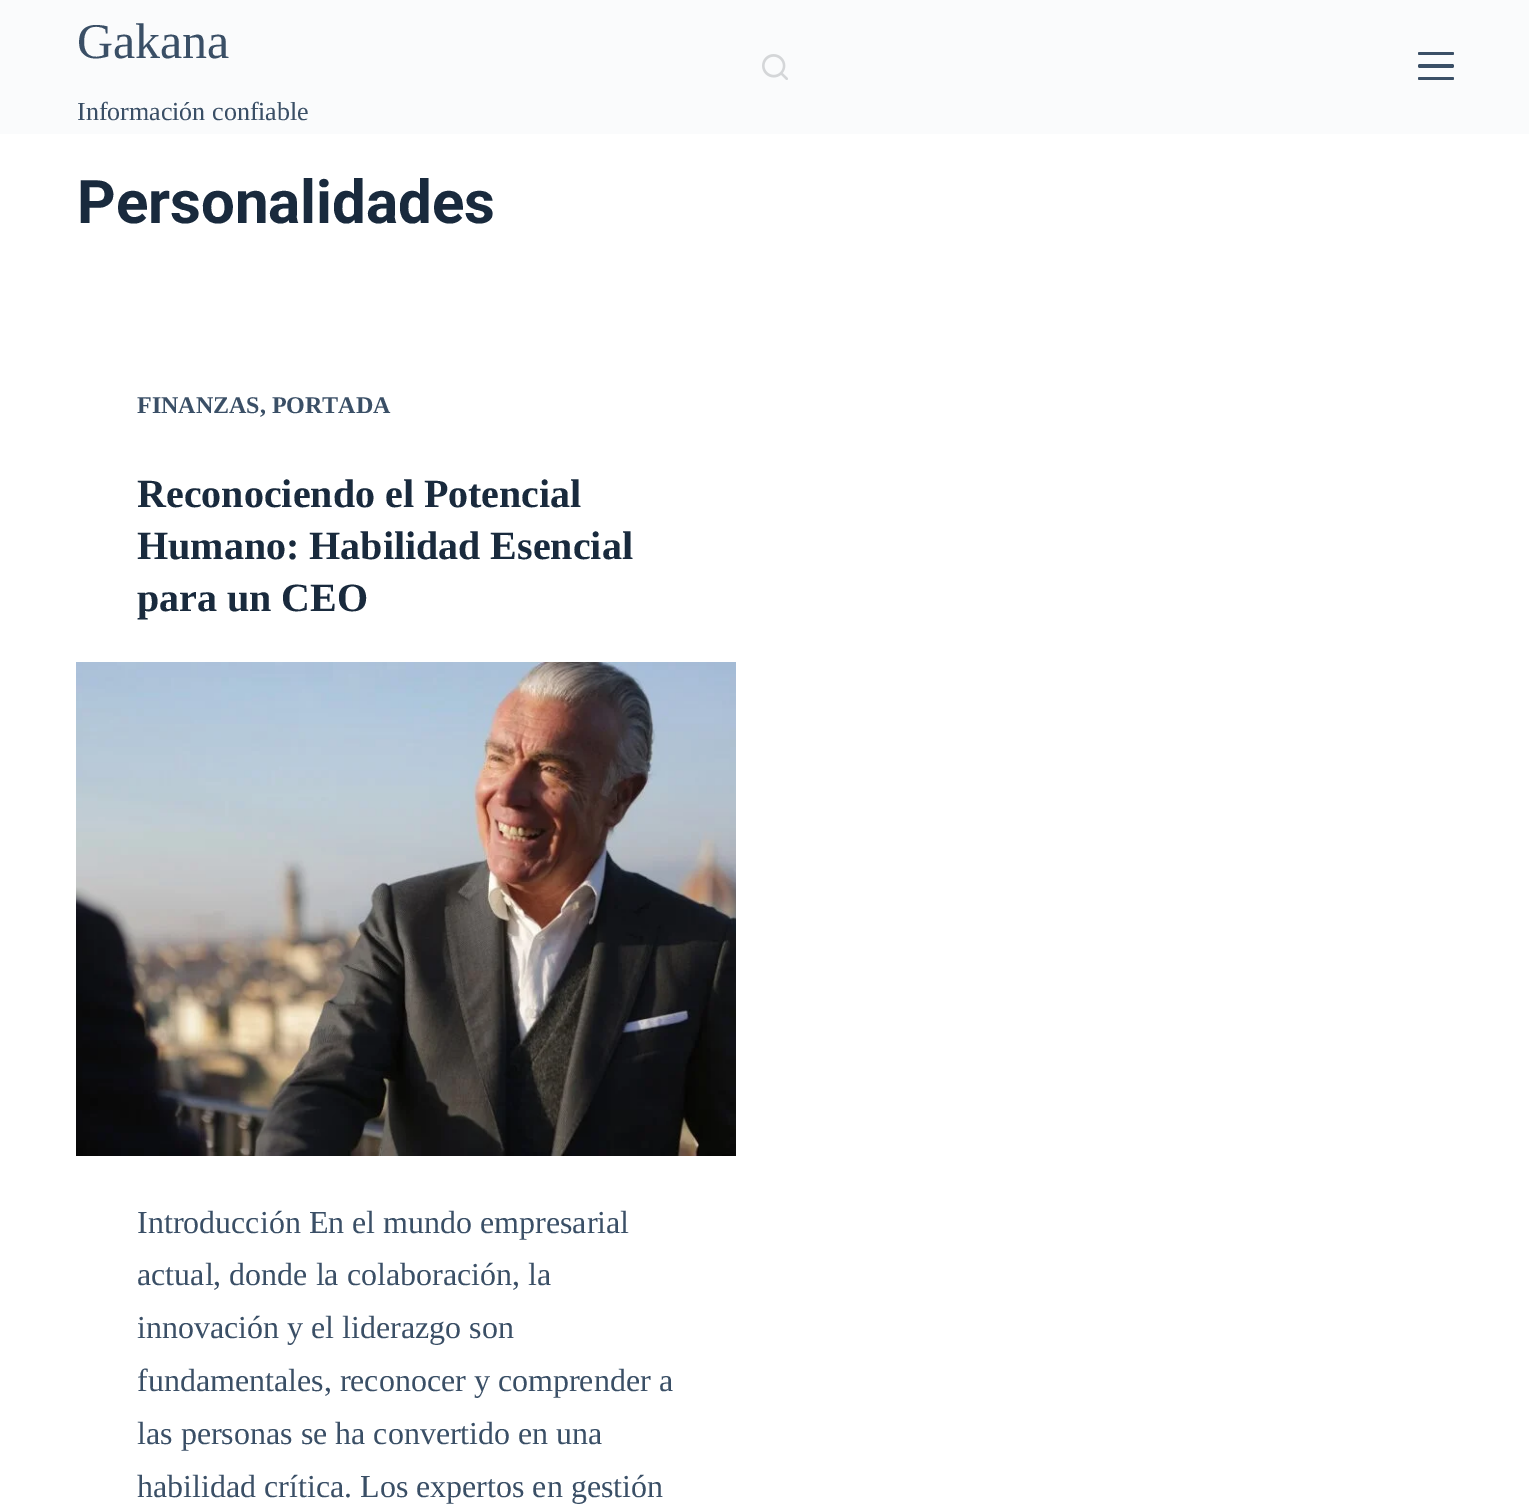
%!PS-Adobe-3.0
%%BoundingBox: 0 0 1529 1507
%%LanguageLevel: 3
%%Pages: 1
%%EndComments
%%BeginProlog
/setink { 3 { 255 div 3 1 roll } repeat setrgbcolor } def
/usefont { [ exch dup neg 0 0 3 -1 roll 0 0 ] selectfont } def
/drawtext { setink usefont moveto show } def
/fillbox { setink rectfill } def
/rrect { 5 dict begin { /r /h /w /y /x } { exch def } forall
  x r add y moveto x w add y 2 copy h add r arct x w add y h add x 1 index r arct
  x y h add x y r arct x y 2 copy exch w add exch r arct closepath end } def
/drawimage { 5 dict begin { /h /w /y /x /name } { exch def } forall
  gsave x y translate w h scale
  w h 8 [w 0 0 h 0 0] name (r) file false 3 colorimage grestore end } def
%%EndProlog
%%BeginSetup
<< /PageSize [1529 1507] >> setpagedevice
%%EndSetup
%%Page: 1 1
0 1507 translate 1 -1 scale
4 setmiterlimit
0 0 1529 1507 255 255 255 fillbox
0 0 1529 134 250 251 252 fillbox
(Gakana) 77 58 /LiberationSerif-Regular 50 58 79 102 drawtext
(Información confiable) 77 120 /LiberationSerif-Regular 26 58 79 102 drawtext
(assets/img1.rgb) 762 54 26 26 drawimage
1418 52 36 3 1.5 rrect fill
1418 64 36 4 2 rrect fill
1418 77 36 3 1.5 rrect fill
(Personalidades) 77 223 /Roboto-Bold 60 25 42 61 drawtext
(FINANZAS, PORTADA) 137 413 /LiberationSerif-Bold 24 58 79 102 drawtext
(Reconociendo el Potencial) 137 507 /LiberationSerif-Bold 40 25 42 61 drawtext
(Humano: Habilidad Esencial) 137 559 /LiberationSerif-Bold 40 25 42 61 drawtext
(para un CEO) 137 611 /LiberationSerif-Bold 40 25 42 61 drawtext
(assets/img2.rgb) 76 662 660 494 drawimage
(Introducción En el mundo empresarial) 137 1233 /LiberationSerif-Regular 32 58 79 102 drawtext
(actual, donde la colaboración, la) 137 1285 /LiberationSerif-Regular 32 58 79 102 drawtext
(innovación y el liderazgo son) 137 1338 /LiberationSerif-Regular 32 58 79 102 drawtext
(fundamentales, reconocer y comprender a) 137 1391 /LiberationSerif-Regular 32 58 79 102 drawtext
(las personas se ha convertido en una) 137 1444 /LiberationSerif-Regular 32 58 79 102 drawtext
(habilidad crítica. Los expertos en gestión) 137 1497 /LiberationSerif-Regular 32 58 79 102 drawtext
showpage
%%EOF
